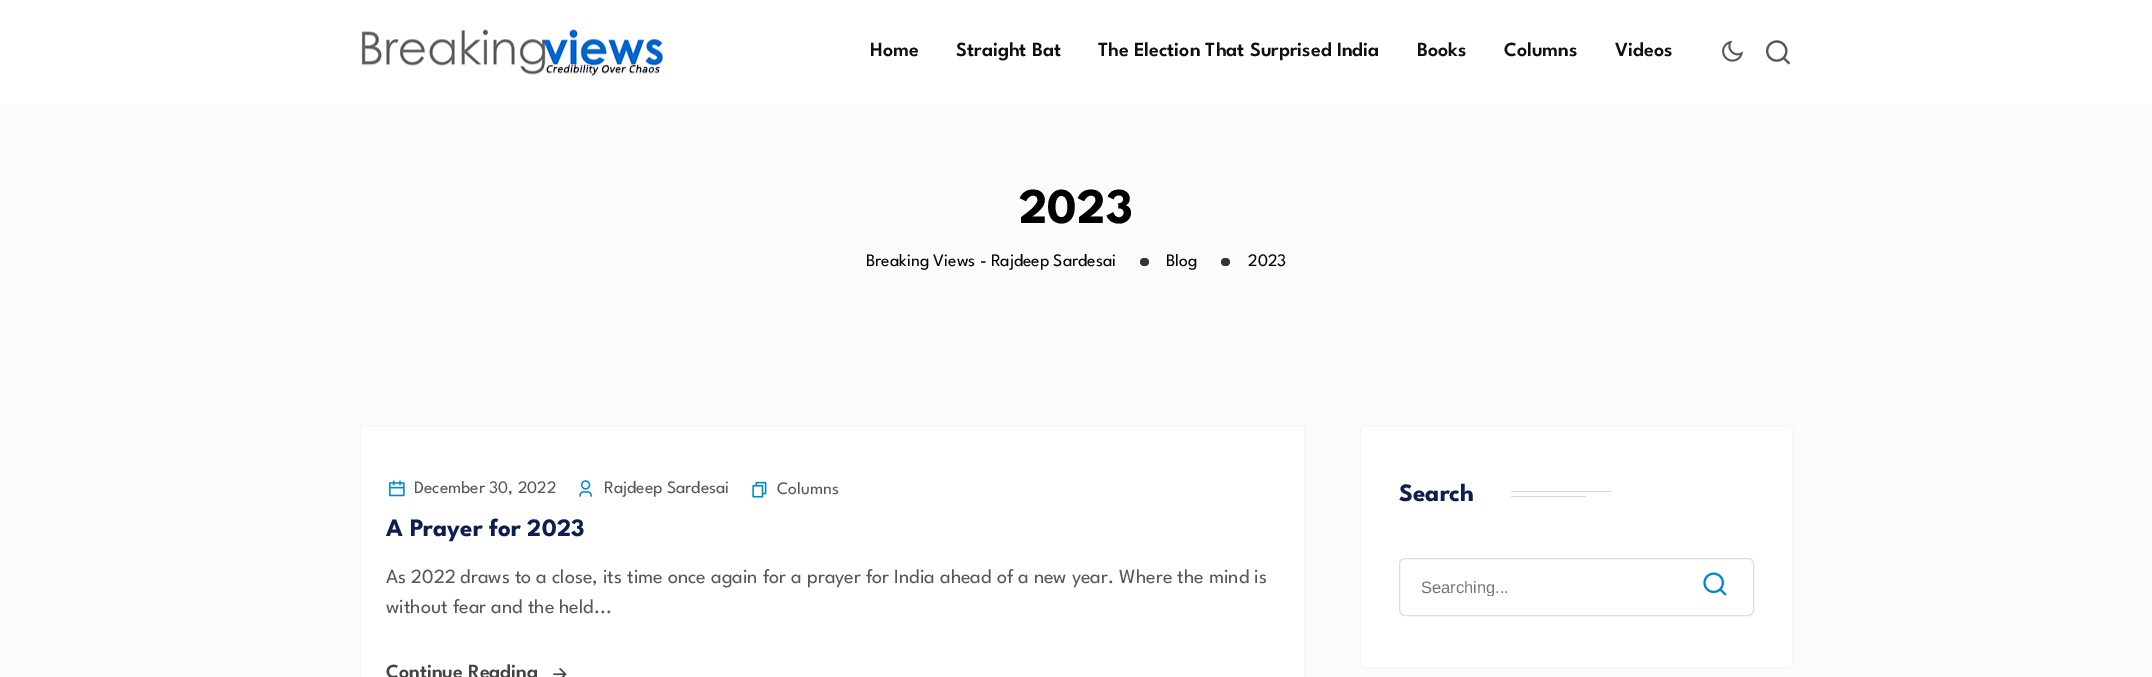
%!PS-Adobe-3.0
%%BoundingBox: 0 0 2152 677
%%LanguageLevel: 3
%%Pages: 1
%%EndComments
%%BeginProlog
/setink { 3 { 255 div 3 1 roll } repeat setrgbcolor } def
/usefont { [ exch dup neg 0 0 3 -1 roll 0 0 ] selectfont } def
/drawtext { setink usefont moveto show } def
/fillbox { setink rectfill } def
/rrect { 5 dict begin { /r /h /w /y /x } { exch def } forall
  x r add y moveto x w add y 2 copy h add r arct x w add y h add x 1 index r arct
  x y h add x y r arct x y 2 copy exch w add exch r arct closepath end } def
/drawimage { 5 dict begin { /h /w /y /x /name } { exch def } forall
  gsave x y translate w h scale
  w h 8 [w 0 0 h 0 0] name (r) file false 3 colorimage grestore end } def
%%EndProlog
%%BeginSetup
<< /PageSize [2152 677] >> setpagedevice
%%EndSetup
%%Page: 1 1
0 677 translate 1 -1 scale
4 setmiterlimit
0 0 2152 677 251 251 251 fillbox
0 0 2152 105 255 255 255 fillbox
(assets/img1.rgb) 361 29 302 47 drawimage
(Home) 870 56 /LeagueSpartan-SemiBold 20 16 16 16 drawtext
(Straight Bat) 956 56 /LeagueSpartan-SemiBold 20 16 16 16 drawtext
(The Election That Surprised India) 1098 56 /LeagueSpartan-SemiBold 20 16 16 16 drawtext
(Books) 1417 56 /LeagueSpartan-SemiBold 20 16 16 16 drawtext
(Columns) 1504 56 /LeagueSpartan-SemiBold 20 16 16 16 drawtext
(Videos) 1615 56 /LeagueSpartan-SemiBold 20 16 16 16 drawtext
(assets/img2.rgb) 1722 40 21 22 drawimage
(assets/img3.rgb) 1766 40 25 25 drawimage
(2023) 1019 223 /LeagueSpartan-Bold 50 0 0 0 drawtext
(Breaking Views - Rajdeep Sardesai) 866 266 /LeagueSpartan-Regular 17.5 0 0 0 drawtext
51 51 51 setink
1140 258 9 8 4 rrect fill
(Blog) 1166 266 /LeagueSpartan-Regular 17.5 0 0 0 drawtext
51 51 51 setink
1221 258 9 8 4 rrect fill
(2023) 1248 266 /LeagueSpartan-Regular 17.5 0 0 0 drawtext
255 255 255 setink
360.5 425.5 moveto 1304.5 425.5 lineto 1304.5 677.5 lineto 360.5 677.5 lineto closepath gsave fill grestore
244 244 244 setink
stroke
(assets/img4.rgb) 389 480 16 17 drawimage
(December 30, 2022) 414 493 /LeagueSpartan-Regular 17.5 85 87 92 drawtext
(assets/img5.rgb) 579 480 13 17 drawimage
(Rajdeep Sardesai) 604 493 /LeagueSpartan-Regular 17.5 85 87 92 drawtext
(assets/img6.rgb) 752 481 15 17 drawimage
(Columns) 777 494 /LeagueSpartan-Regular 17.5 85 87 92 drawtext
(A Prayer for 2023) 386 536 /LeagueSpartan-Bold 25 13 30 80 drawtext
(As 2022 draws to a close, its time once again for a prayer for India ahead of a new year. Where the mind is) 386 583 /LeagueSpartan-Regular 20 85 87 92 drawtext
(without fear and the held...) 386 613 /LeagueSpartan-Regular 20 85 87 92 drawtext
(Continue Reading) 386 678 /LeagueSpartan-SemiBold 20 68 68 68 drawtext
(assets/img7.rgb) 553 667 14 10 drawimage
255 255 255 setink
1360.5 425.5 432 242 3.5 rrect gsave fill grestore
244 244 244 setink
stroke
(Search) 1399 501 /LeagueSpartan-Bold 25 13 30 80 drawtext
1511 491 100 1 214 214 214 fillbox
1511 496 75 1 214 214 214 fillbox
221 221 221 setink
1399.5 558.5 354 57 5.5 rrect stroke
gsave
1421 578 305 18 rectclip
(Searching...) 1421 593 /LiberationSans-Regular 16.5 117 117 117 drawtext
grestore
(assets/img8.rgb) 1703 572 24 24 drawimage
showpage
%%EOF
